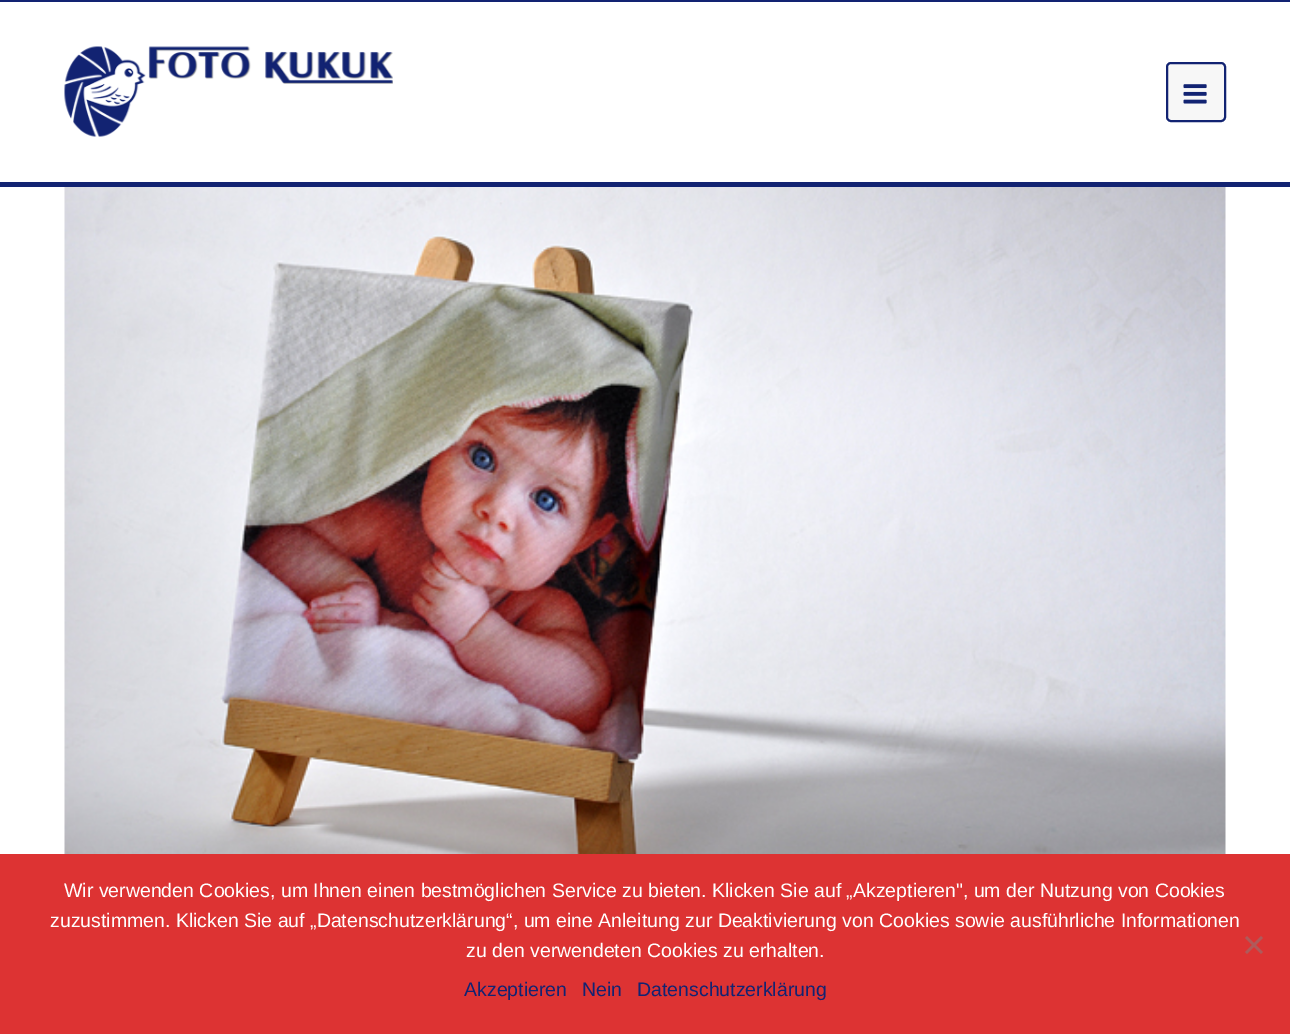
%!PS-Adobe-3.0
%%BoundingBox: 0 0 1290 1034
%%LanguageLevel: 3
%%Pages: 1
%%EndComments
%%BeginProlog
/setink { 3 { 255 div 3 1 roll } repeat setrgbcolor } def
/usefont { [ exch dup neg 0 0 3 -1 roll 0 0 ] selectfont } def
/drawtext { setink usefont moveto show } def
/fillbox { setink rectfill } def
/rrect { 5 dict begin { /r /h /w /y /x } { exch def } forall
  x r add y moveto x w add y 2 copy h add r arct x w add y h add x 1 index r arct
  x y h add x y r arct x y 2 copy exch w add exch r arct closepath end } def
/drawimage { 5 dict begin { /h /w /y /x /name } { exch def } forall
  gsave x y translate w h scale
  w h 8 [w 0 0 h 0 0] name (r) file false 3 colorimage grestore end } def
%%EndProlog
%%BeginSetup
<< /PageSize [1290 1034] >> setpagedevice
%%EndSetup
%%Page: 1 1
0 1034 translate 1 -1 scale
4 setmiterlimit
0 0 1290 1034 255 255 255 fillbox
0 0 1290 2 18 35 114 fillbox
0 182 1290 5 18 35 114 fillbox
(assets/img1.rgb) 64 46 329 91 drawimage
247 247 247 setink
1167 63 58 58 4 rrect gsave fill grestore
18 35 114 setink
2 setlinewidth
stroke
(assets/img2.rgb) 1183 84 24 20 drawimage
(assets/img3.rgb) 64 187 1162 667 drawimage
0 854 1290 180 221 51 51 fillbox
(Wir verwenden Cookies, um Ihnen einen bestmöglichen Service zu bieten. Klicken Sie auf „Akzeptieren", um der Nutzung von Cookies) 64 897 /LiberationSans-Regular 19.5 255 255 255 drawtext
(zuzustimmen. Klicken Sie auf „Datenschutzerklärung“, um eine Anleitung zur Deaktivierung von Cookies sowie ausführliche Informationen) 50 927 /LiberationSans-Regular 19.5 255 255 255 drawtext
(zu den verwendeten Cookies zu erhalten.) 466 957 /LiberationSans-Regular 19.5 255 255 255 drawtext
175 90 90 setink
1261 936 moveto 1263 938 lineto 1247 954 lineto 1245 952 lineto closepath fill
1245 938 moveto 1247 936 lineto 1263 952 lineto 1261 954 lineto closepath fill
(Akzeptieren) 464 996 /LiberationSans-Regular 19.5 18 35 114 drawtext
(Nein) 582 996 /LiberationSans-Regular 19.5 18 35 114 drawtext
(Datenschutzerklärung) 637 996 /LiberationSans-Regular 19.5 18 35 114 drawtext
showpage
%%EOF
